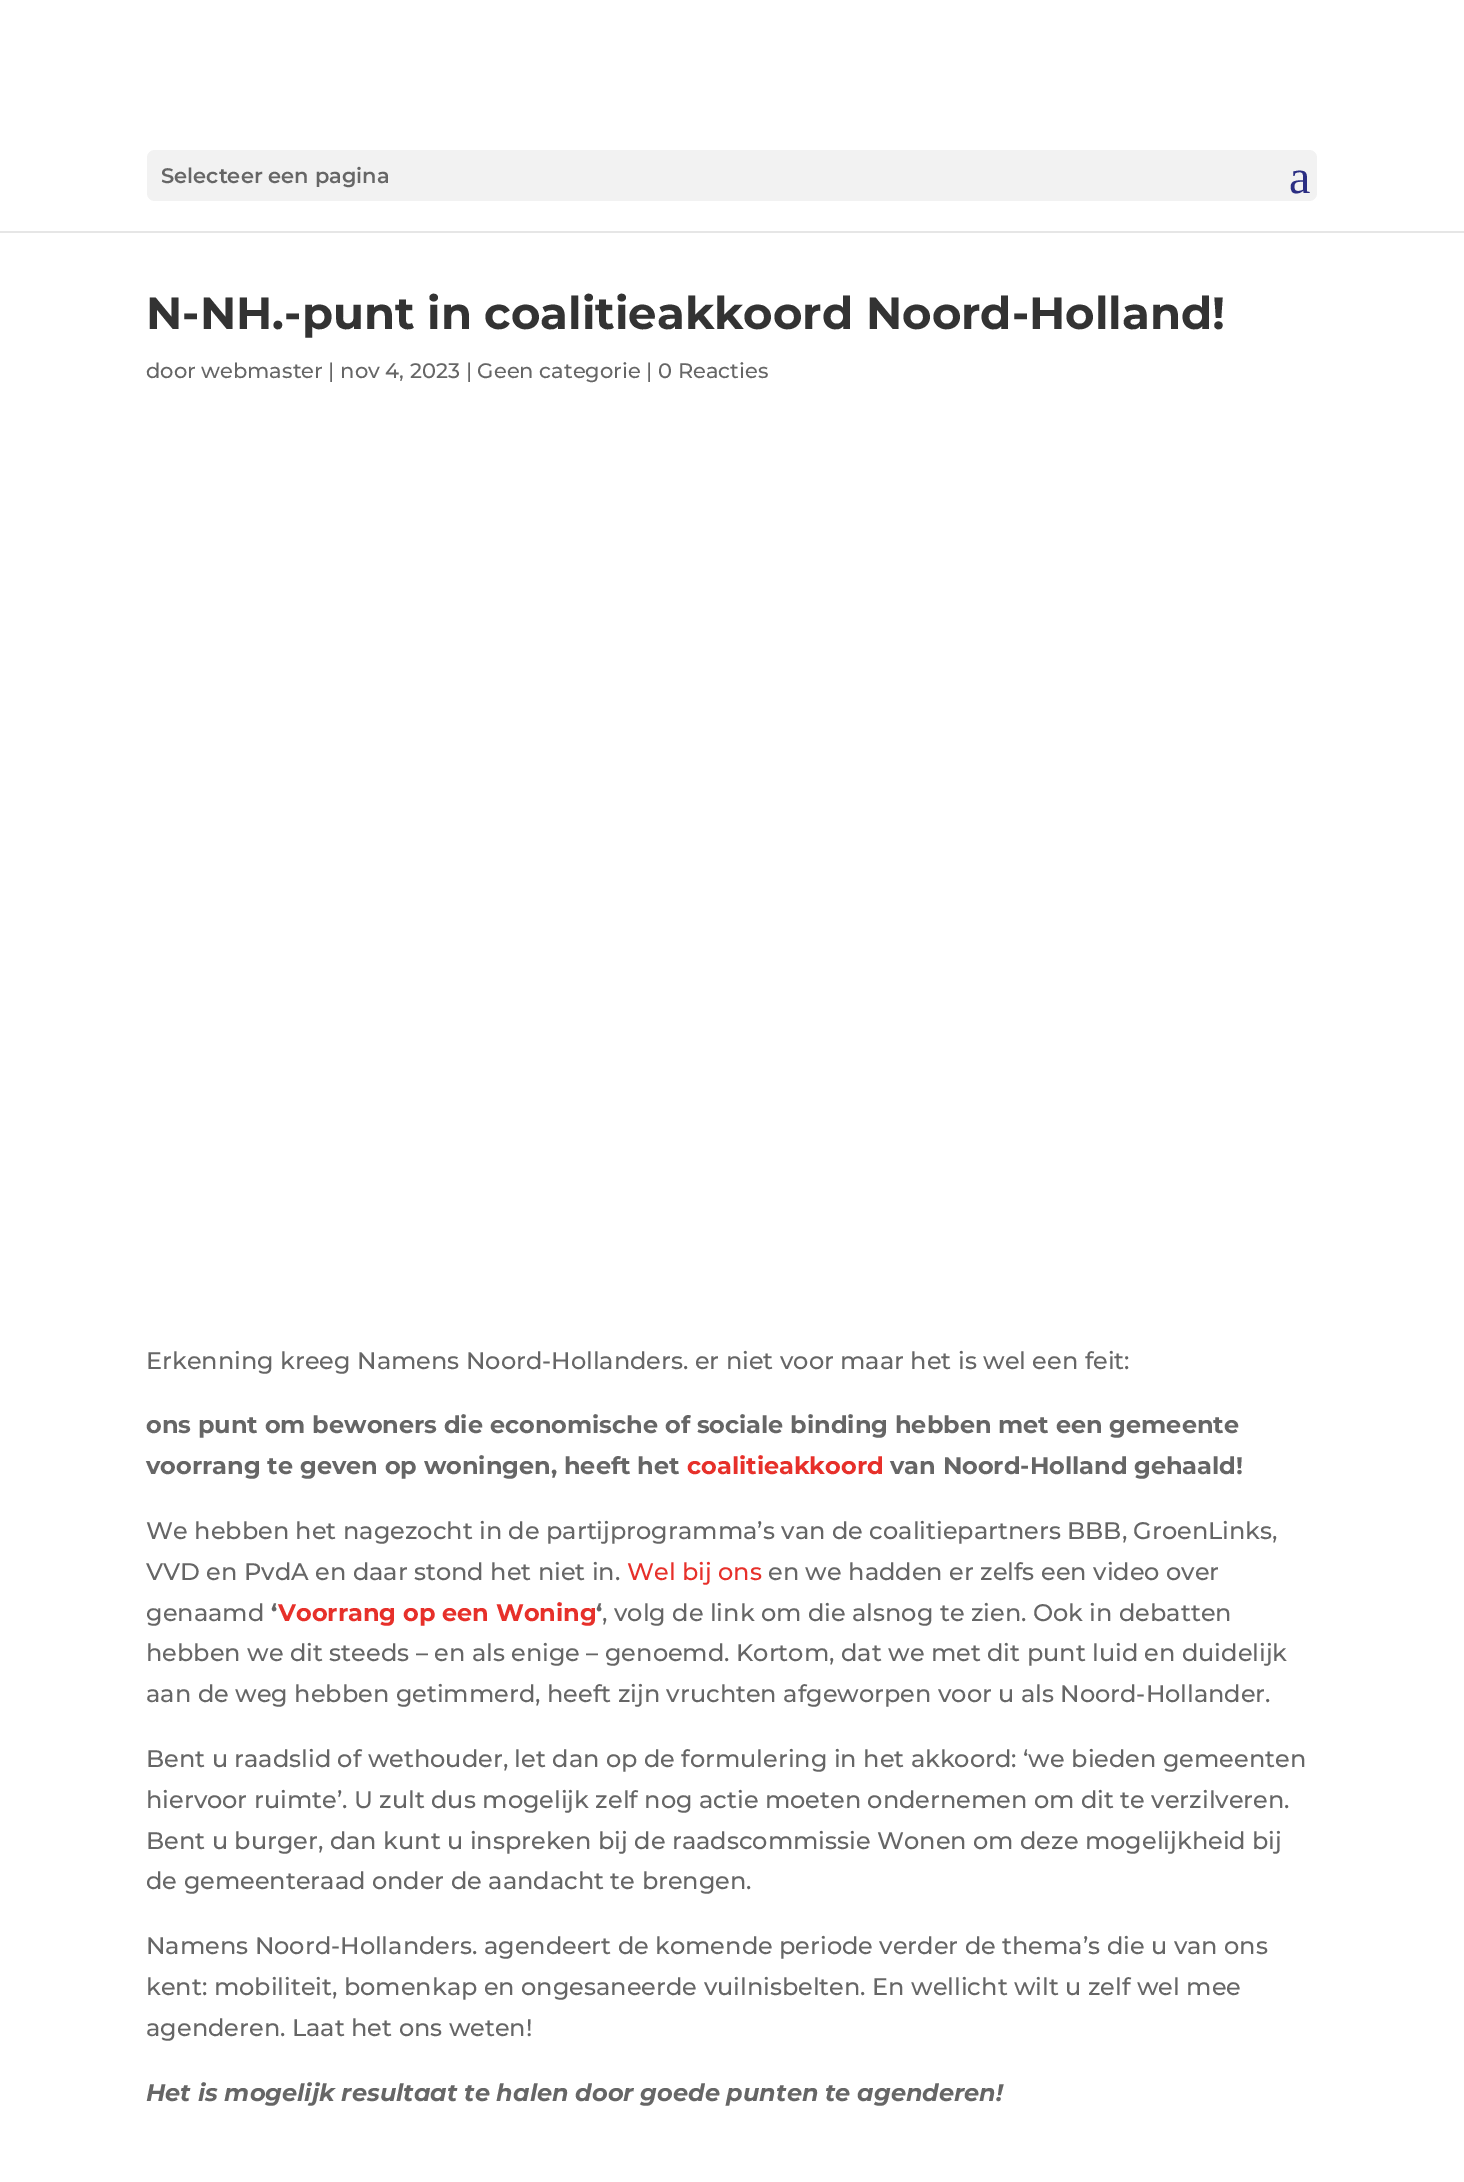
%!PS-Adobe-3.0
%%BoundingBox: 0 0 1464 2182
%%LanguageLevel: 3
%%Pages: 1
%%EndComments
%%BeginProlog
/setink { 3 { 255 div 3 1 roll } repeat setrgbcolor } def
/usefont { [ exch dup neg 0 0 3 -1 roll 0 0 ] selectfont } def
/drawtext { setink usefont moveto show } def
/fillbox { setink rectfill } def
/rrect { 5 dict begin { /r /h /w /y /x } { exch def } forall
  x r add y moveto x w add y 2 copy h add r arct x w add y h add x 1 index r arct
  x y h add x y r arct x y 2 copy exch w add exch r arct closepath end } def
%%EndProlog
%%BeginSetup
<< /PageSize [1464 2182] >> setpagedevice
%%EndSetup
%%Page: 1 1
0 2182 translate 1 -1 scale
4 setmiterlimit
0 0 1464 2182 255 255 255 fillbox
0 231 1464 2 230 230 230 fillbox
242 242 242 setink
147 150 1170 51 8 rrect fill
(Selecteer een pagina) 161 183 /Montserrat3-Thin 21 102 102 102 drawtext
(a) 1289 193 /LiberationSerif-Regular 48 43 46 131 drawtext
(N-NH.-punt in coalitieakkoord Noord-Holland!) 146 329 /Montserrat-Thin 45 51 51 51 drawtext
(door webmaster | nov 4, 2023 | Geen categorie | 0 Reacties) 146 378 /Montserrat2-Thin 21 102 102 102 drawtext
(Erkenning kreeg Namens Noord-Hollanders. er niet voor maar het is wel een feit:) 146 1369 /Montserrat2-Thin 24 102 102 102 drawtext
(ons punt om bewoners die economische of sociale binding hebben met een gemeente) 146 1433 /Montserrat-Thin 24 102 102 102 drawtext
(voorrang te geven op woningen, heeft het) 146 1474 /Montserrat-Thin 24 102 102 102 drawtext
(coalitieakkoord) 687 1474 /Montserrat-Thin 24 231 48 42 drawtext
(van Noord-Holland gehaald!) 890 1474 /Montserrat-Thin 24 102 102 102 drawtext
(We hebben het nagezocht in de partijprogramma’s van de coalitiepartners BBB, GroenLinks,) 146 1539 /Montserrat2-Thin 24 102 102 102 drawtext
(VVD en PvdA en daar stond het niet in.) 146 1580 /Montserrat2-Thin 24 102 102 102 drawtext
(Wel bij ons) 627 1580 /Montserrat2-Thin 24 231 48 42 drawtext
(en we hadden er zelfs een video over) 768 1580 /Montserrat2-Thin 24 102 102 102 drawtext
(genaamd) 146 1621 /Montserrat2-Thin 24 102 102 102 drawtext
(‘) 271 1621 /Montserrat-Thin 24 102 102 102 drawtext
(Voorrang op een Woning) 278 1621 /Montserrat-Thin 24 231 48 42 drawtext
(‘) 596 1621 /Montserrat-Thin 24 102 102 102 drawtext
(, volg de link om die alsnog te zien. Ook in debatten) 602 1621 /Montserrat2-Thin 24 102 102 102 drawtext
(hebben we dit steeds – en als enige – genoemd. Kortom, dat we met dit punt luid en duidelijk) 146 1661 /Montserrat2-Thin 24 102 102 102 drawtext
(aan de weg hebben getimmerd, heeft zijn vruchten afgeworpen voor u als Noord-Hollander.) 146 1702 /Montserrat2-Thin 24 102 102 102 drawtext
(Bent u raadslid of wethouder, let dan op de formulering in het akkoord: ‘we bieden gemeenten) 146 1767 /Montserrat2-Thin 24 102 102 102 drawtext
(hiervoor ruimte’. U zult dus mogelijk zelf nog actie moeten ondernemen om dit te verzilveren.) 146 1808 /Montserrat2-Thin 24 102 102 102 drawtext
(Bent u burger, dan kunt u inspreken bij de raadscommissie Wonen om deze mogelijkheid bij) 146 1849 /Montserrat2-Thin 24 102 102 102 drawtext
(de gemeenteraad onder de aandacht te brengen.) 146 1889 /Montserrat2-Thin 24 102 102 102 drawtext
(Namens Noord-Hollanders. agendeert de komende periode verder de thema’s die u van ons) 146 1954 /Montserrat2-Thin 24 102 102 102 drawtext
(kent: mobiliteit, bomenkap en ongesaneerde vuilnisbelten. En wellicht wilt u zelf wel mee) 146 1995 /Montserrat2-Thin 24 102 102 102 drawtext
(agenderen. Laat het ons weten!) 146 2036 /Montserrat2-Thin 24 102 102 102 drawtext
(Het is mogelijk resultaat te halen door goede punten te agenderen!) 146 2101 /Montserrat-ThinItalic 24 102 102 102 drawtext
showpage
%%EOF
